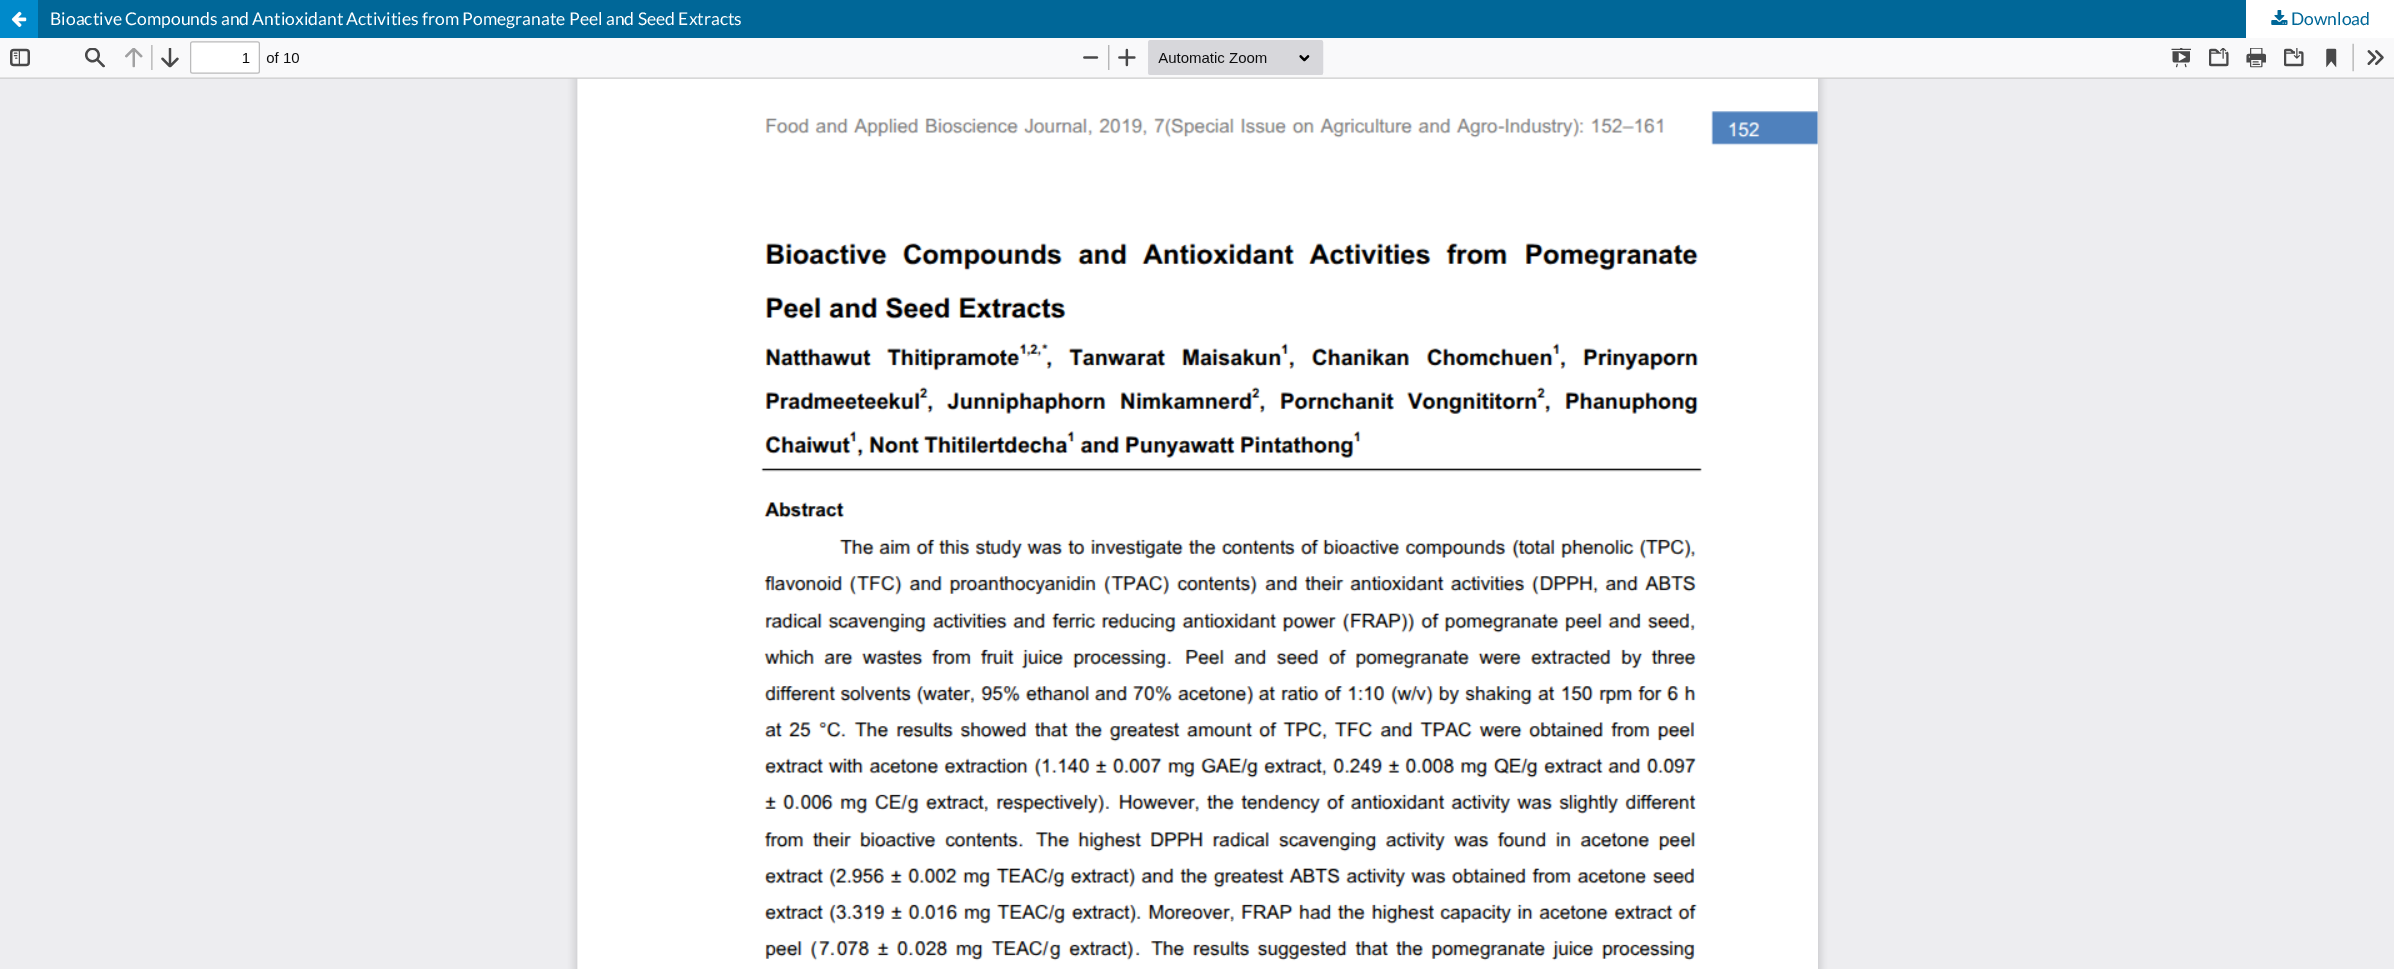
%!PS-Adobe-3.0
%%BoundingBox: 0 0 2394 969
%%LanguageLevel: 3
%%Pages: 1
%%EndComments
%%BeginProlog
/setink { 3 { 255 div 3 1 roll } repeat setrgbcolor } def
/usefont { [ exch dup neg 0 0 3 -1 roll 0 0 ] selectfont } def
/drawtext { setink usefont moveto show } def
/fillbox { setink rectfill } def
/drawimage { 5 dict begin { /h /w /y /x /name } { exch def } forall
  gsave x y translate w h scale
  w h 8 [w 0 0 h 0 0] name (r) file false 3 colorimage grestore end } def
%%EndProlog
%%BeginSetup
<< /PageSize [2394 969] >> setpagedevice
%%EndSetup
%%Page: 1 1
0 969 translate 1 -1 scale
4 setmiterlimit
0 0 2394 969 255 255 255 fillbox
38 0 2208 38 0 103 152 fillbox
0 0 38 38 0 138 203 fillbox
(assets/img1.rgb) 11 11 16 16 drawimage
(Bioactive Compounds and Antioxidant Activities from Pomegranate Peel and Seed Extracts) 50 25 /Lato-Regular 17.5 255 255 255 drawtext
(assets/img2.rgb) 2271 10 17 15 drawimage
(Download) 2291 25 /Lato-Regular 17.5 0 103 152 drawtext
(assets/img3.rgb) 0 38 2394 931 drawimage
showpage
%%EOF
